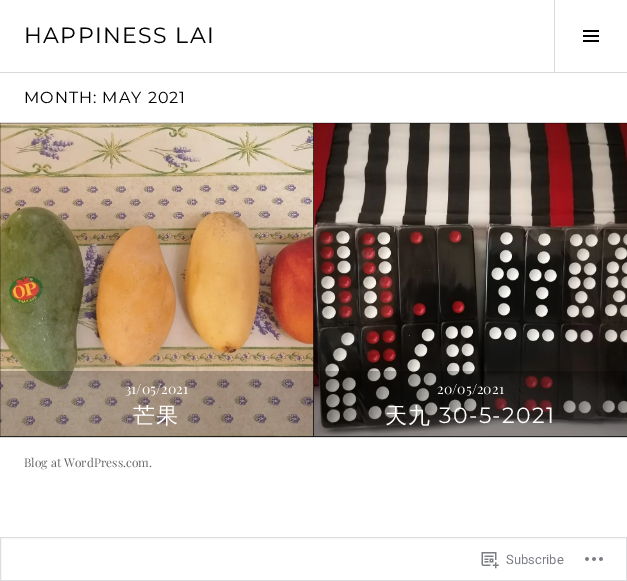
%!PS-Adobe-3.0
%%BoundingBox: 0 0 627 581
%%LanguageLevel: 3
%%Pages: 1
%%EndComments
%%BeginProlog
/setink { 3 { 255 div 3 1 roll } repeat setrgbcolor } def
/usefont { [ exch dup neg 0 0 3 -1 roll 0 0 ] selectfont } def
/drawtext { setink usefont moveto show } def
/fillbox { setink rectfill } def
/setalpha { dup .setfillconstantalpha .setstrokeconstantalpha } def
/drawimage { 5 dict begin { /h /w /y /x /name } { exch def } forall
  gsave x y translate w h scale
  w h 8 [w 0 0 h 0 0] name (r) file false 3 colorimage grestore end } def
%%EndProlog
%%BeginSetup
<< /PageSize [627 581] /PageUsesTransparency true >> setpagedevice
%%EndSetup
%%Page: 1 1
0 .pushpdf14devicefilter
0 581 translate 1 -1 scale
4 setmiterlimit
0 0 627 581 255 255 255 fillbox
0 72 627 1 217 217 217 fillbox
/Montserrat-Regular 22 usefont
0 0 0 setink
24 43 moveto 1.4 0 (HAPPINESS LAI) ashow
554 0 1 72 217 217 217 fillbox
(assets/img1.rgb) 583 30 16 12 drawimage
0 122 627 1 217 217 217 fillbox
/Montserrat-Regular 16 usefont
0 0 0 setink
24 103 moveto 1 0 (MONTH: MAY 2021) ashow
0 123 627 314 0 0 0 fillbox
(assets/img2.rgb) 0 123 314 314 drawimage
0.25 setalpha
0 371 314 66 0 0 0 fillbox
1 setalpha
(31/05/2021) 125 394 /PlayfairDisplay-Regular 14 255 255 255 drawtext
/WenQuanYiZenHei-Medium 22 usefont
133 423 moveto 1.4 0 (芒果) ashow
(assets/img3.rgb) 314 123 313 314 drawimage
0.25 setalpha
314 371 313 66 0 0 0 fillbox
1 setalpha
(20/05/2021) 437 394 /PlayfairDisplay-Regular 14 255 255 255 drawtext
/WenQuanYiZenHei-Medium 22 usefont
385 423 moveto 1.4 0 (天九) ashow
/Montserrat-Regular 22 usefont
439 423 moveto 1.4 0 (30-5-2021) ashow
0 437 627 1 217 217 217 fillbox
(Blog at WordPress.com.) 24 467 /PlayfairDisplay-Regular 12 102 102 102 drawtext
221 221 223 setink
0.5 537.5 626 43 rectstroke
(assets/img4.rgb) 481 552 18 17 drawimage
(Subscribe) 506 564 /Roboto-Regular 13 123 127 133 drawtext
(assets/img5.rgb) 585 557 18 4 drawimage
.poppdf14devicefilter showpage
%%EOF
